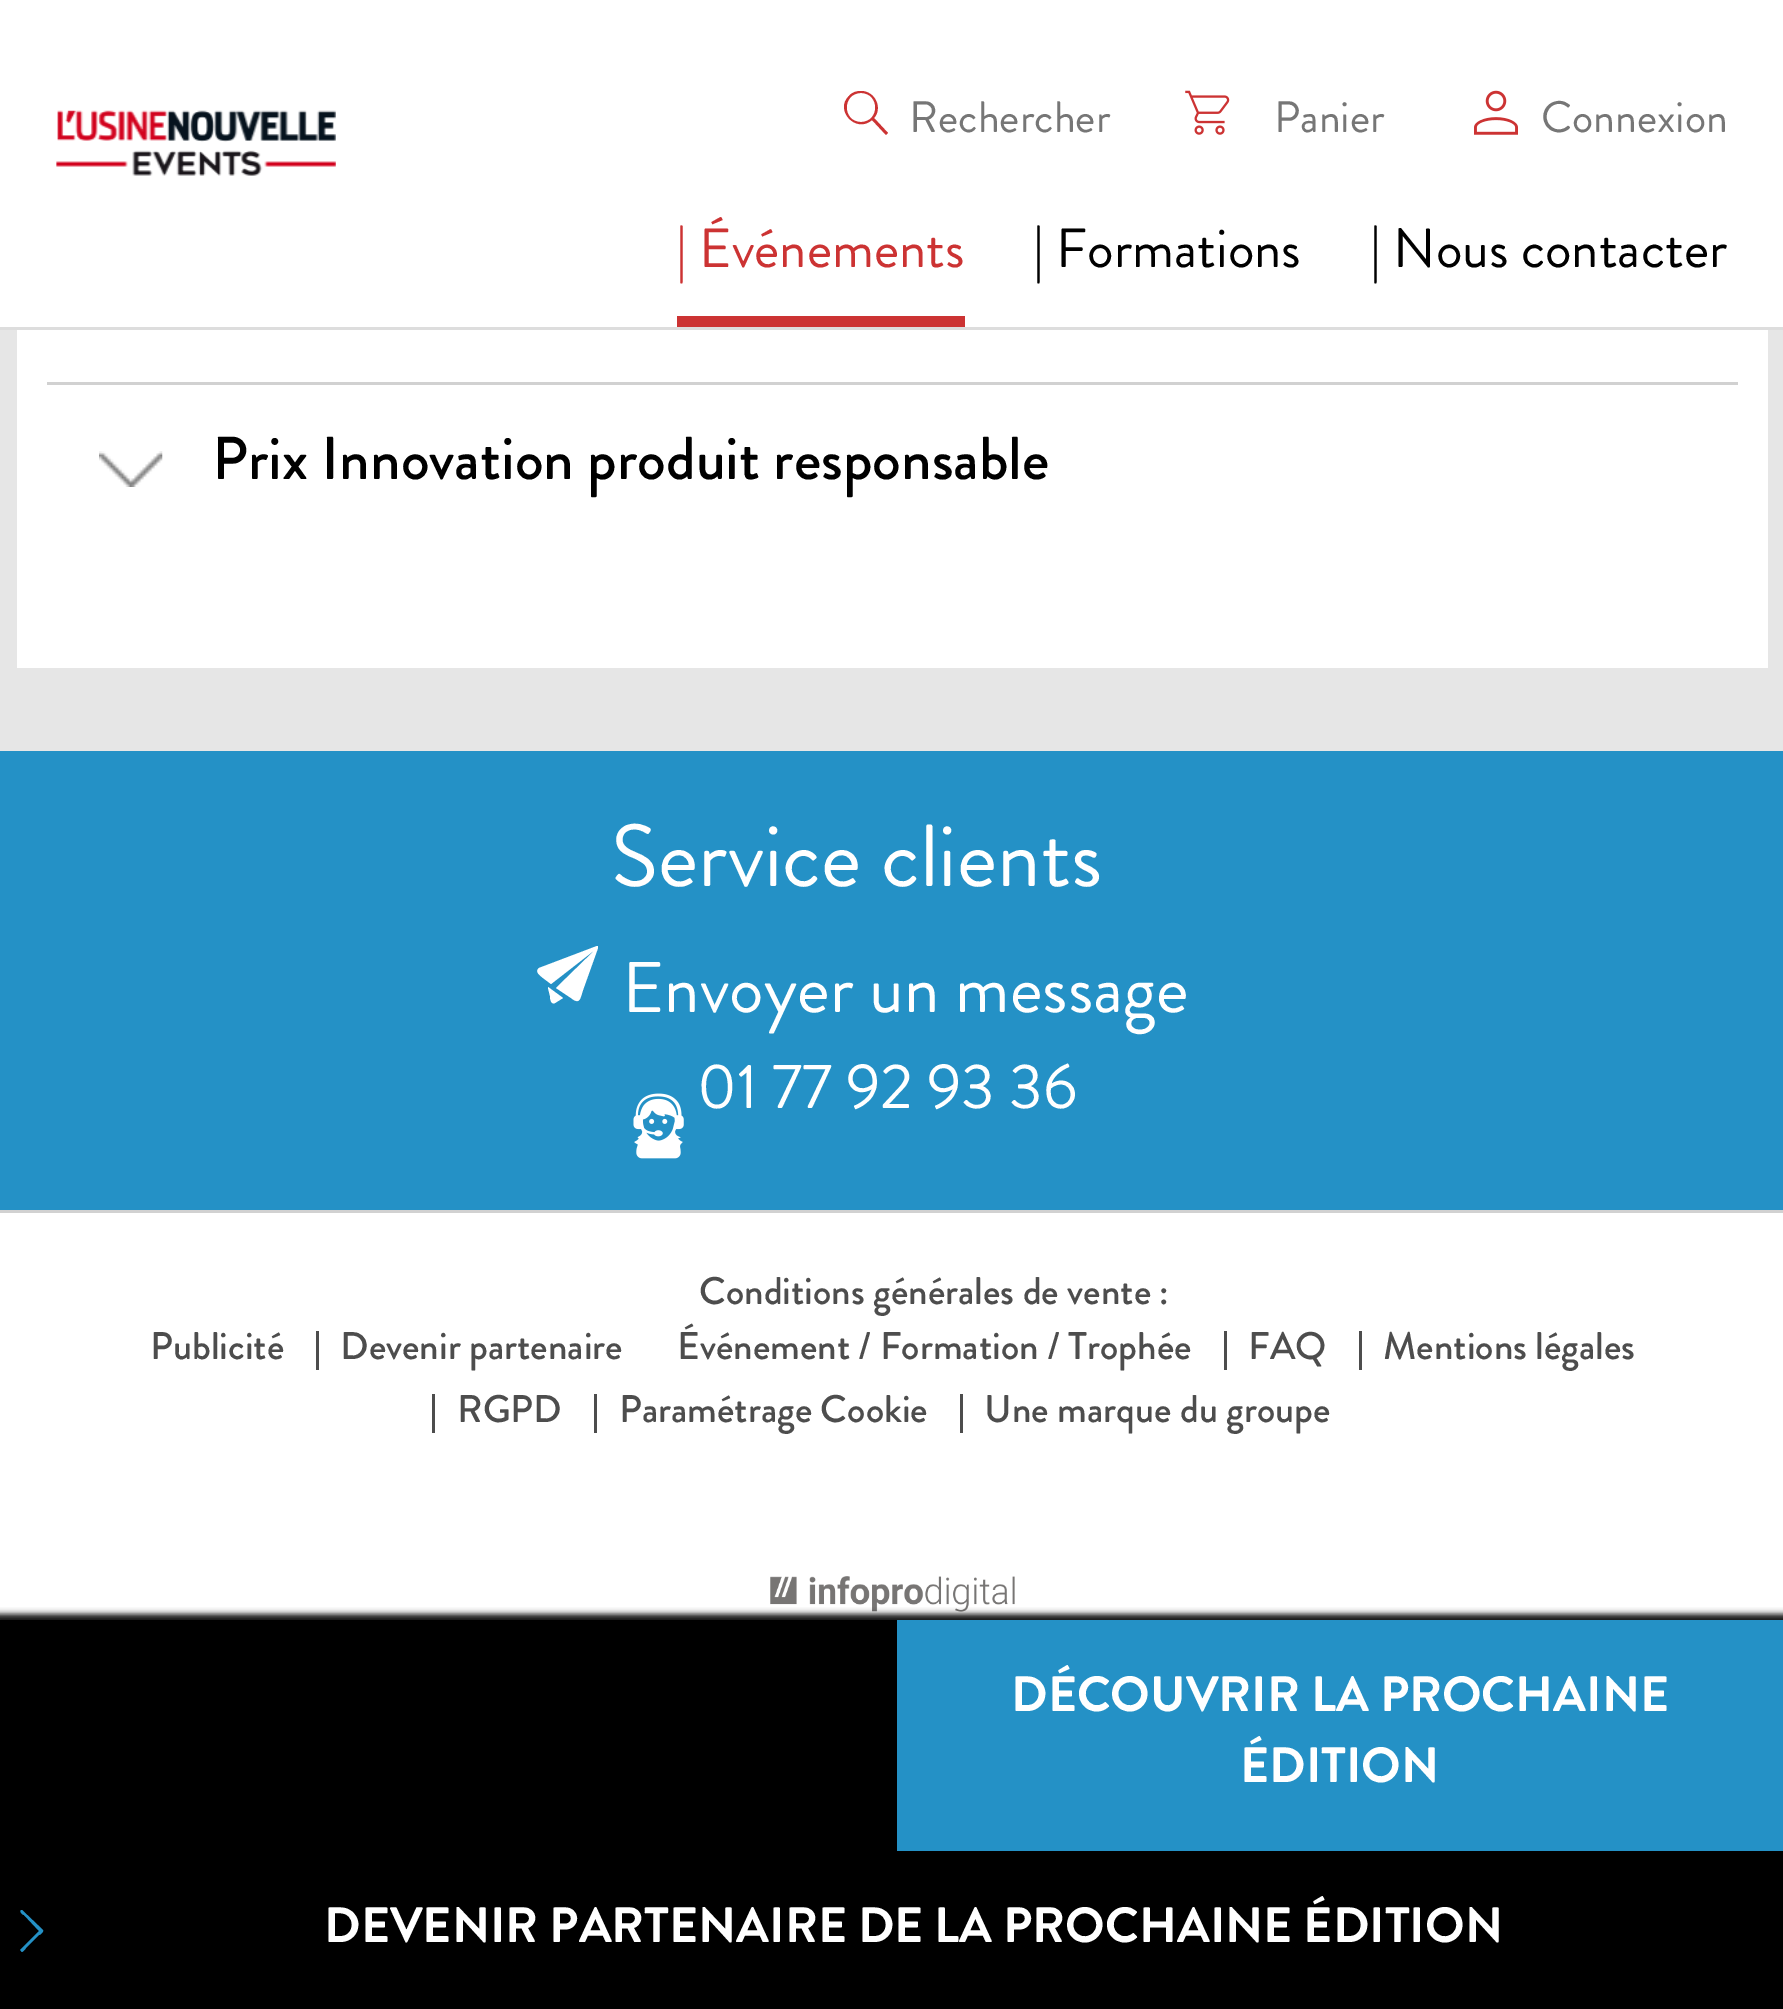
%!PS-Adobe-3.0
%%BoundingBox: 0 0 1783 2009
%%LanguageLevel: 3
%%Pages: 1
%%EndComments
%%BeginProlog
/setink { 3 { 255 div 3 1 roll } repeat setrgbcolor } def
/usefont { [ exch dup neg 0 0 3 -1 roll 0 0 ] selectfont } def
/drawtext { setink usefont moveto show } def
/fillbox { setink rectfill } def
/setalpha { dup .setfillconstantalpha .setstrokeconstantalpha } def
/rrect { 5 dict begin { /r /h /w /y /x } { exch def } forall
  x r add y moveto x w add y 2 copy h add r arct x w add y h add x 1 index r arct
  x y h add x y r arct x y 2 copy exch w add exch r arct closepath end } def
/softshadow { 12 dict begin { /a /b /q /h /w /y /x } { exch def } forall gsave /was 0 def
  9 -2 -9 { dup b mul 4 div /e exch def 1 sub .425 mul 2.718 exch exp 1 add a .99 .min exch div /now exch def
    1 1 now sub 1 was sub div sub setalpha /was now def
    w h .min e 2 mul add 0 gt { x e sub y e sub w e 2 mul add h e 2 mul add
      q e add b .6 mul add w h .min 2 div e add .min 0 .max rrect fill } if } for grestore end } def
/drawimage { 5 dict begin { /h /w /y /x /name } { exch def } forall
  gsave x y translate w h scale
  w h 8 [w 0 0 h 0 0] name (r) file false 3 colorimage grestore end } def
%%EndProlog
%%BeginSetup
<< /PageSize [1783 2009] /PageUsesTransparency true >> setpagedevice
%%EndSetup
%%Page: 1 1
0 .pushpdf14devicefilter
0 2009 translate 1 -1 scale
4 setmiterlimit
0 0 1783 2009 255 255 255 fillbox
0 327 1783 3 221 221 221 fillbox
(assets/img1.rgb) 56 110 280 66 drawimage
204 51 51 setink
861 91 moveto 875 91 883 108 874 118 curveto 888 133 lineto 886 135 lineto 872 120 lineto 856 134 834 110 849 96 curveto 852 92 857 91 861 91 curveto closepath 861 93 moveto 842 93 842 122 861 122 curveto 880 122 880 93 861 93 curveto closepath fill
(Rechercher) 909 132 /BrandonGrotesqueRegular-Regular 44 118 118 118 drawtext
(assets/img2.rgb) 1185 90 45 45 drawimage
(Panier) 1274 132 /BrandonGrotesqueRegular-Regular 44 118 118 118 drawtext
(assets/img3.rgb) 1474 90 44 45 drawimage
(Connexion) 1541 132 /BrandonGrotesqueRegular-Regular 44 118 118 118 drawtext
677 316 288 11 204 51 51 fillbox
(| Événements) 676 267 /BrandonGrotesqueRegular-Regular 55 204 51 51 drawtext
(| Formations) 1033 267 /BrandonGrotesqueRegular-Regular 55 0 0 0 drawtext
(| Nous contacter) 1370 267 /BrandonGrotesqueRegular-Regular 55 0 0 0 drawtext
0 330 1783 421 230 230 230 fillbox
17 330 1751 338 255 255 255 fillbox
47 382 1691 3 209 209 209 fillbox
(assets/img4.rgb) 99 451 64 36 drawimage
(Prix Innovation produit responsable) 212 479 /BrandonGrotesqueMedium-Regular 60.5 0 0 0 drawtext
0 751 1783 459 36 145 198 fillbox
(Service clients) 611 886 /BrandonGrotesqueRegular-Regular 88 255 255 255 drawtext
598 946 moveto 597 946 lineto 539 968 lineto 534 972 541 976 543 978 curveto 551 984 lineto 596 949 lineto 556 988 lineto 571 998 lineto 580 1005 580 999 583 990 curveto 598 948 lineto closepath 548 988 moveto 550 996 lineto 550 999 551 1005 555 1003 curveto 563 998 lineto 548 987 lineto closepath fill
(Envoyer un message) 622 1012 /BrandonGrotesqueRegular-Regular 71.5 255 255 255 drawtext
(01 77 92 93 36) 697 1108 /BrandonGrotesqueRegular-Regular 63.25 255 255 255 drawtext
(assets/img5.rgb) 633 1093 51 66 drawimage
(assets/img6.rgb) 770 1576 245 36 drawimage
0 0 0 setink
-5 1614 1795 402 0 3 0.92 softshadow
0 1620 1783 389 0 0 0 fillbox
897 1620 886 231 36 145 198 fillbox
(DÉCOUVRIR LA PROCHAINE) 1011 1711 /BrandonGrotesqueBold-Regular 49.5 255 255 255 drawtext
(ÉDITION) 1240 1782 /BrandonGrotesqueBold-Regular 49.5 255 255 255 drawtext
36 145 198 setink
43 1930 moveto 22 1910 lineto 21 1910 lineto 19 1912 23 1915 24 1915 curveto 39 1931 lineto 20 1950 lineto 21 1951 lineto 22 1954 26 1948 26 1948 curveto 39 1935 lineto 40 1935 44 1932 43 1930 curveto closepath fill
(DEVENIR PARTENAIRE DE LA PROCHAINE ÉDITION) 324 1942 /BrandonGrotesqueBold-Regular 49.5 255 255 255 drawtext
0 1210 1783 3 209 209 209 fillbox
(Publicité) 150 1359 /BrandonGrotesqueMedium-Regular 38.5 77 77 77 drawtext
(Devenir partenaire) 340 1359 /BrandonGrotesqueMedium-Regular 38.5 77 77 77 drawtext
316 1331 3 39 77 77 77 fillbox
(Conditions générales de vente :) 699 1304 /BrandonGrotesqueMedium-Regular 38.5 77 77 77 drawtext
(Événement / Formation / Trophée) 677 1359 /BrandonGrotesqueMedium-Regular 38.5 77 77 77 drawtext
(FAQ) 1248 1359 /BrandonGrotesqueMedium-Regular 38.5 77 77 77 drawtext
1224 1331 3 39 77 77 77 fillbox
(Mentions légales) 1383 1359 /BrandonGrotesqueMedium-Regular 38.5 77 77 77 drawtext
1359 1331 3 39 77 77 77 fillbox
(RGPD) 457 1422 /BrandonGrotesqueMedium-Regular 38.5 77 77 77 drawtext
432 1394 3 39 77 77 77 fillbox
(Paramétrage Cookie) 619 1422 /BrandonGrotesqueMedium-Regular 38.5 77 77 77 drawtext
594 1394 3 39 77 77 77 fillbox
960 1394 3 39 77 77 77 fillbox
(Une marque du groupe) 984 1422 /BrandonGrotesqueMedium-Regular 38.5 77 77 77 drawtext
.poppdf14devicefilter showpage
%%EOF
